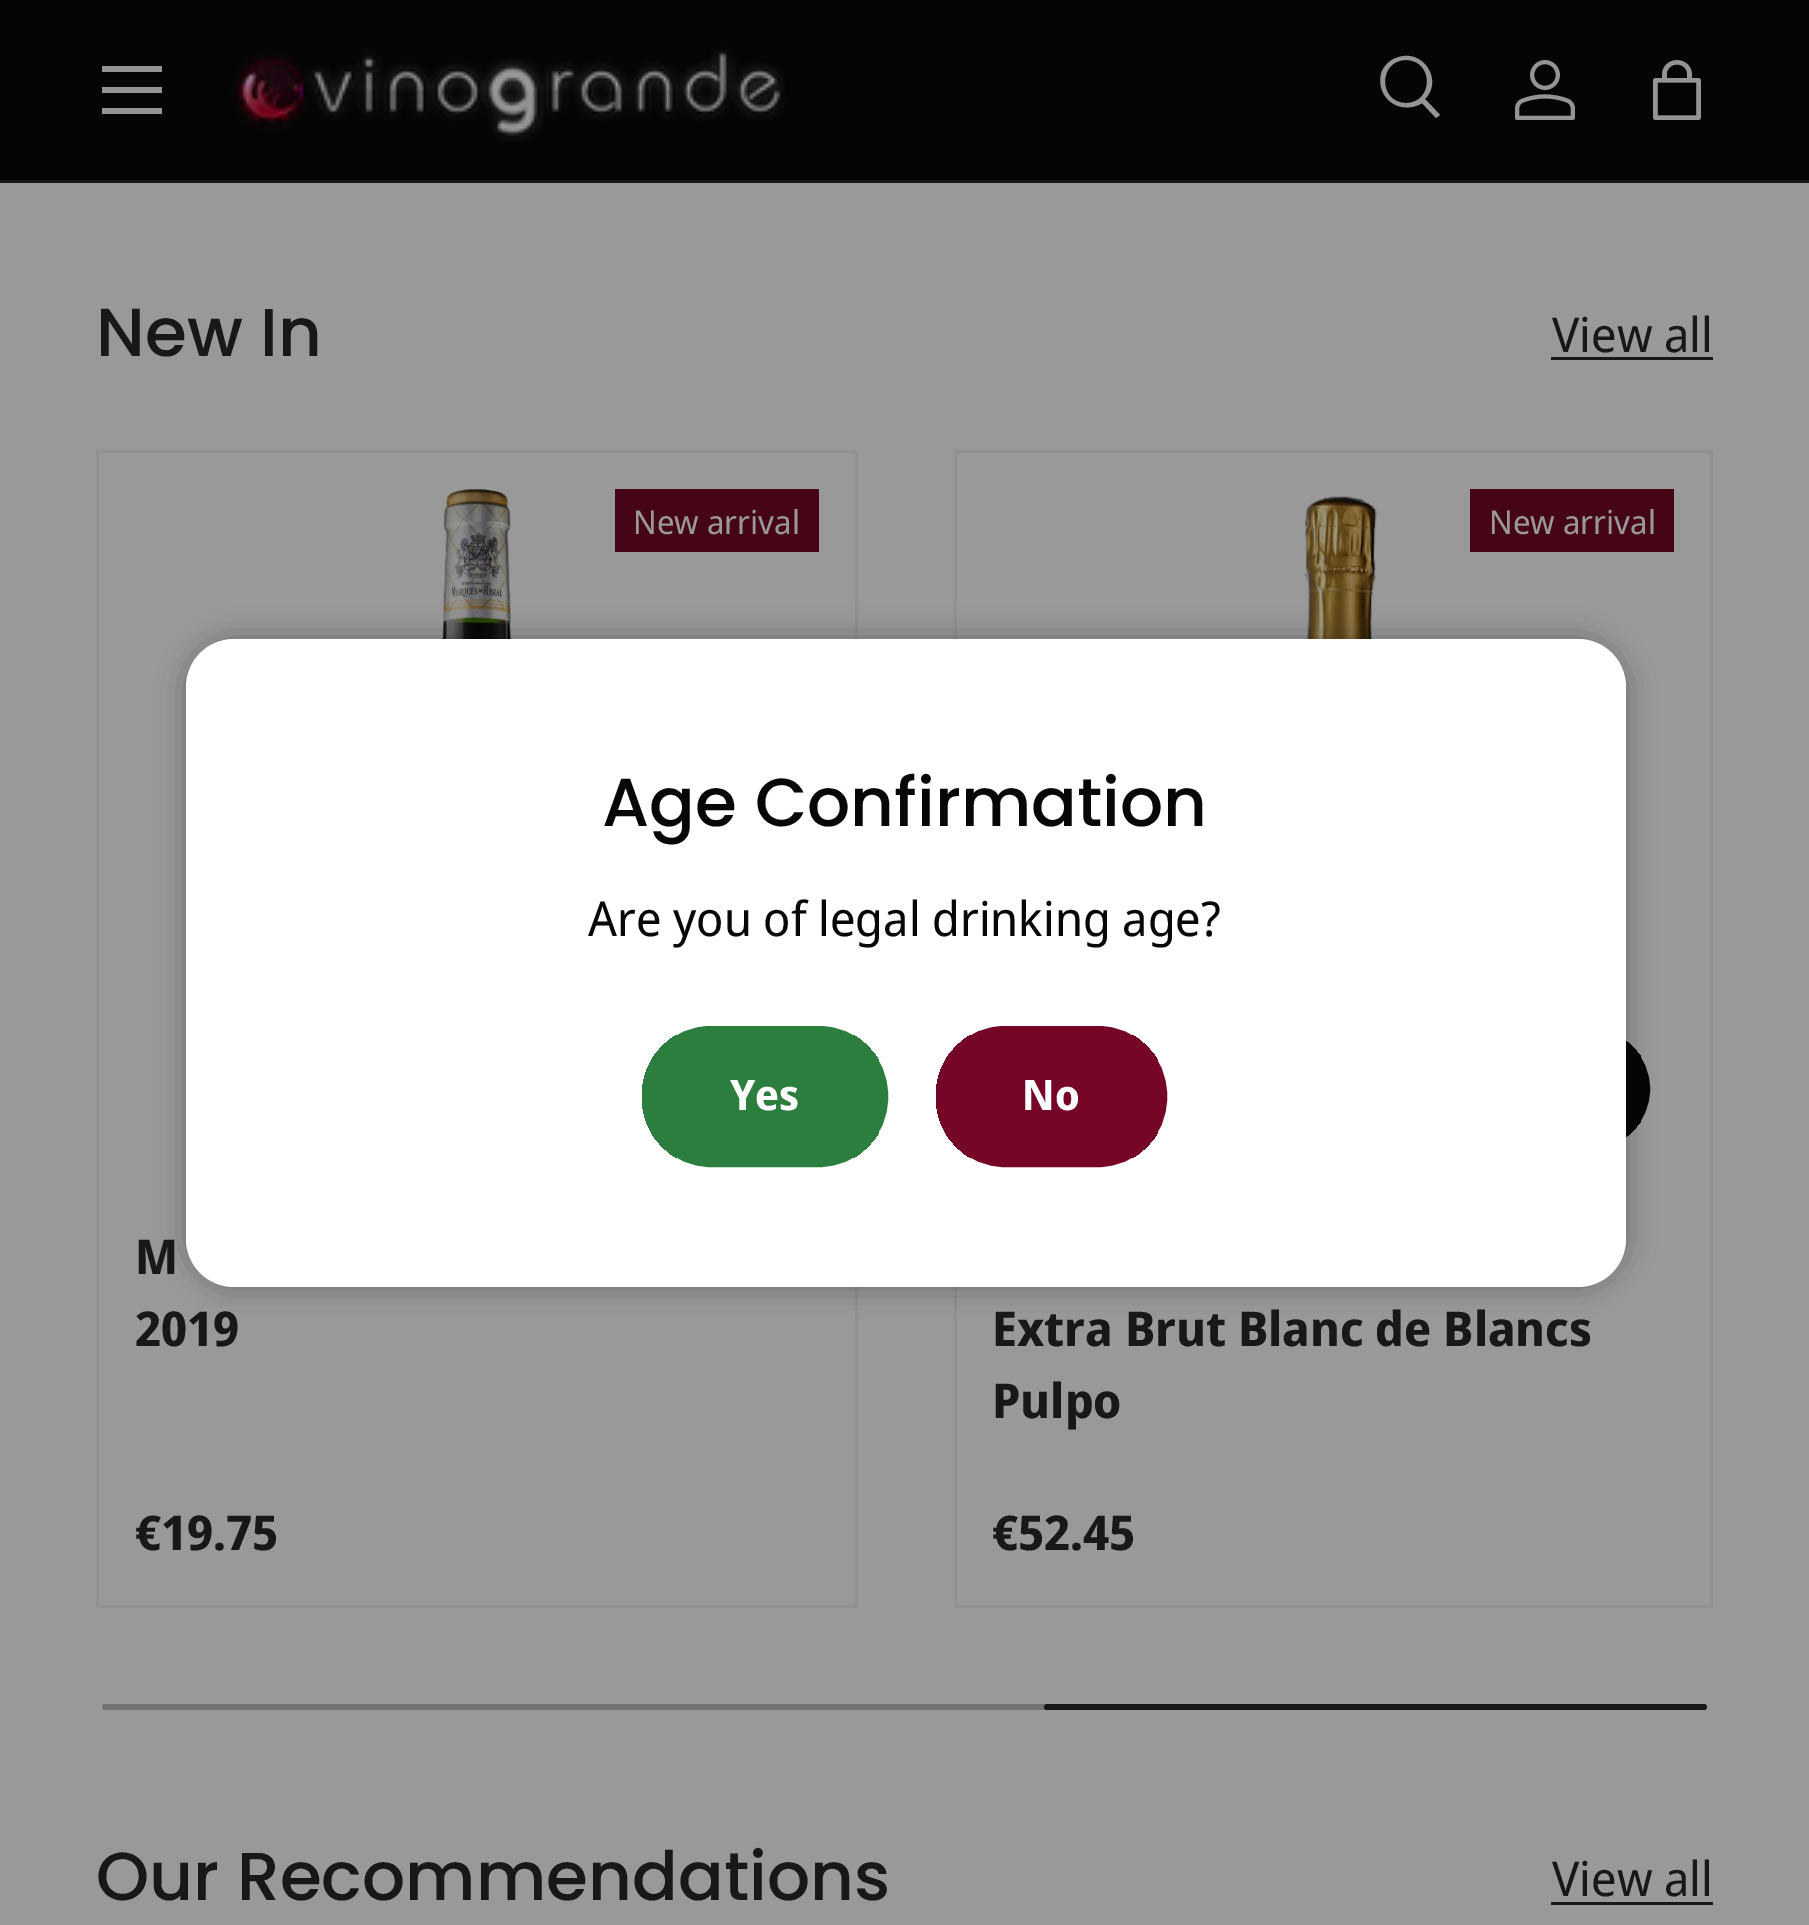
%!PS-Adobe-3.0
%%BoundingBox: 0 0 1809 1925
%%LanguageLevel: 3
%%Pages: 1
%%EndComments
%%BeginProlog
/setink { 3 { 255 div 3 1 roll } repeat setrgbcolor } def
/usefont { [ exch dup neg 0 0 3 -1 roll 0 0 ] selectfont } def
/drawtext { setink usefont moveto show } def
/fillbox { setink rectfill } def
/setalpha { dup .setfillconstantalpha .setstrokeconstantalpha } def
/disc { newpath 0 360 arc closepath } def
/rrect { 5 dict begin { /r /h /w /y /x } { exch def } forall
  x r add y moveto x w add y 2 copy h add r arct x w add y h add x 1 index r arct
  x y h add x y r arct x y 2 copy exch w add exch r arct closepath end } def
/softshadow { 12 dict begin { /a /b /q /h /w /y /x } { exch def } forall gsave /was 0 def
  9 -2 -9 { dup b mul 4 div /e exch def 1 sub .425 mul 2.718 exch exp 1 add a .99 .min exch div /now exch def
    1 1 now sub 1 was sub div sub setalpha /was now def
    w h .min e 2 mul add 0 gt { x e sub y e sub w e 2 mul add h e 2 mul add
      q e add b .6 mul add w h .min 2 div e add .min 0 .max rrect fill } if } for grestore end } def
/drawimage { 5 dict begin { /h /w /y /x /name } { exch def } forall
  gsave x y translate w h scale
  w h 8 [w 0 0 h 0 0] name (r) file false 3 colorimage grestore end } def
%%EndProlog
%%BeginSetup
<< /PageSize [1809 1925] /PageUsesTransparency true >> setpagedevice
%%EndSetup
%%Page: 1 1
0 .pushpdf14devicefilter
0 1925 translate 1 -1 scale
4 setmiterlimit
0 0 1809 1925 153 153 153 fillbox
0 0 1809 180 5 5 5 fillbox
0 180 1809 3 26 26 26 fillbox
102 66 60 6 148 148 148 fillbox
102 108 60 6 148 148 148 fillbox
102 87 60 6 148 148 148 fillbox
(assets/img1.rgb) 230 46 556 96 drawimage
1425 99 moveto 1440 115 lineto 1436 118 lineto 1422 103 lineto 1410 111 1393 108 1385 96 curveto 1380 89 1379 79 1382 71 curveto 1385 65 1390 60 1396 58 curveto 1422 47 1444 80 1425 99 curveto closepath 1406 103 moveto 1434 103 1434 60 1406 60 curveto 1378 60 1378 103 1406 103 curveto closepath fill
(assets/img2.rgb) 1515 60 60 60 drawimage
(assets/img3.rgb) 1653 60 48 60 drawimage
(New In) 96 356 /Poppins-Medium 67.75 24 24 24 drawtext
(View all) 1552 352 /NotoSansDisplay-Regular 48 24 24 24 drawtext
1551 357 162 3 24 24 24 fillbox
145 145 145 setink
3 setlinewidth
97.5 451.5 759 1155 rectstroke
(assets/img4.rgb) 442 489 70 150 drawimage
615 489 204 63 70 4 23 fillbox
(New arrival) 633 534 /NotoSansDisplay-Regular 33 153 153 153 drawtext
(M) 135 1274 /NotoSansDisplay-Bold 48 24 24 24 drawtext
(2019) 135 1346 /NotoSansDisplay-Bold 48 24 24 24 drawtext
(€19.75) 135 1550 /NotoSansDisplay-Bold 48 24 24 24 drawtext
145 145 145 setink
955.5 451.5 756 1155 rectstroke
(assets/img5.rgb) 1304 496 73 143 drawimage
1470 489 204 63 70 4 23 fillbox
(New arrival) 1489 534 /NotoSansDisplay-Regular 33 153 153 153 drawtext
gsave
1530 1029 120 120 60 rrect clip newpath
gsave 1626 1041 moveto 1641 1041 lineto 1641 1137 lineto 1626 1137 lineto closepath clip newpath
<< /ShadingType 2 /ColorSpace /DeviceRGB /Coords [1332 1050 1644 1128] /Extend [true true] /Function << /FunctionType 3 /Domain [0 1] /Functions [<< /FunctionType 2 /Domain [0 1] /C0 [0.125 0.125 0.125] /C1 [0.125 0.125 0.125] /N 1 >> << /FunctionType 2 /Domain [0 1] /C0 [0.02 0.02 0.02] /C1 [0.02 0.02 0.02] /N 1 >>] /Bounds [0.6] /Encode [0 1 0 1] >> >> shfill grestore
grestore
5 5 5 setink
9 setlinewidth
1590 1089 55.5 disc stroke
(Extra Brut Blanc de Blancs) 992 1346 /NotoSansDisplay-Bold 48 24 24 24 drawtext
(Pulpo) 992 1418 /NotoSansDisplay-Bold 48 24 24 24 drawtext
(€52.45) 992 1550 /NotoSansDisplay-Bold 48 24 24 24 drawtext
115 115 115 setink
102 1704 1605 6 3 rrect fill
24 24 24 setink
1044 1704 663 6 3 rrect fill
(Our Recommendations) 96 1900 /Poppins-Medium 67.75 24 24 24 drawtext
(View all) 1552 1896 /NotoSansDisplay-Regular 48 24 24 24 drawtext
1551 1902 162 3 24 24 24 fillbox
0 0 0 setink
186 639 1440 648 48 15 0.3 softshadow
255 255 255 setink
186 639 1440 648 48 rrect fill
(Age Confirmation) 602 826 /Poppins-Medium 67.75 7 7 7 drawtext
(Are you of legal drinking age?) 588 936 /NotoSansDisplay-Regular 48 7 7 7 drawtext
gsave
642 1026 246 141 69 rrect clip newpath
gsave 642 1035 moveto 879 1035 lineto 879 1158 lineto 642 1158 lineto closepath clip newpath
<< /ShadingType 2 /ColorSpace /DeviceRGB /Coords [201 1013 873 1180] /Extend [true true] /Function << /FunctionType 3 /Domain [0 1] /Functions [<< /FunctionType 2 /Domain [0 1] /C0 [0.318 0.608 0.384] /C1 [0.318 0.608 0.384] /N 1 >> << /FunctionType 2 /Domain [0 1] /C0 [0.173 0.494 0.247] /C1 [0.173 0.494 0.247] /N 1 >>] /Bounds [0.6] /Encode [0 1 0 1] >> >> shfill grestore
grestore
44 126 63 setink
646.5 1030.5 237 132 64.5 rrect stroke
(Yes) 730 1110 /NotoSansDisplay-Bold 42 255 255 255 drawtext
gsave
936 1026 231 141 69 rrect clip newpath
gsave 936 1035 moveto 1158 1035 lineto 1158 1158 lineto 936 1158 lineto closepath clip newpath
<< /ShadingType 2 /ColorSpace /DeviceRGB /Coords [523 1018 1154 1175] /Extend [true true] /Function << /FunctionType 3 /Domain [0 1] /Functions [<< /FunctionType 2 /Domain [0 1] /C0 [0.588 0.184 0.302] /C1 [0.588 0.184 0.302] /N 1 >> << /FunctionType 2 /Domain [0 1] /C0 [0.459 0.024 0.153] /C1 [0.459 0.024 0.153] /N 1 >>] /Bounds [0.6] /Encode [0 1 0 1] >> >> shfill grestore
grestore
117 6 39 setink
940.5 1030.5 222 132 64.5 rrect stroke
(No) 1022 1110 /NotoSansDisplay-Bold 42 255 255 255 drawtext
.poppdf14devicefilter showpage
%%EOF
